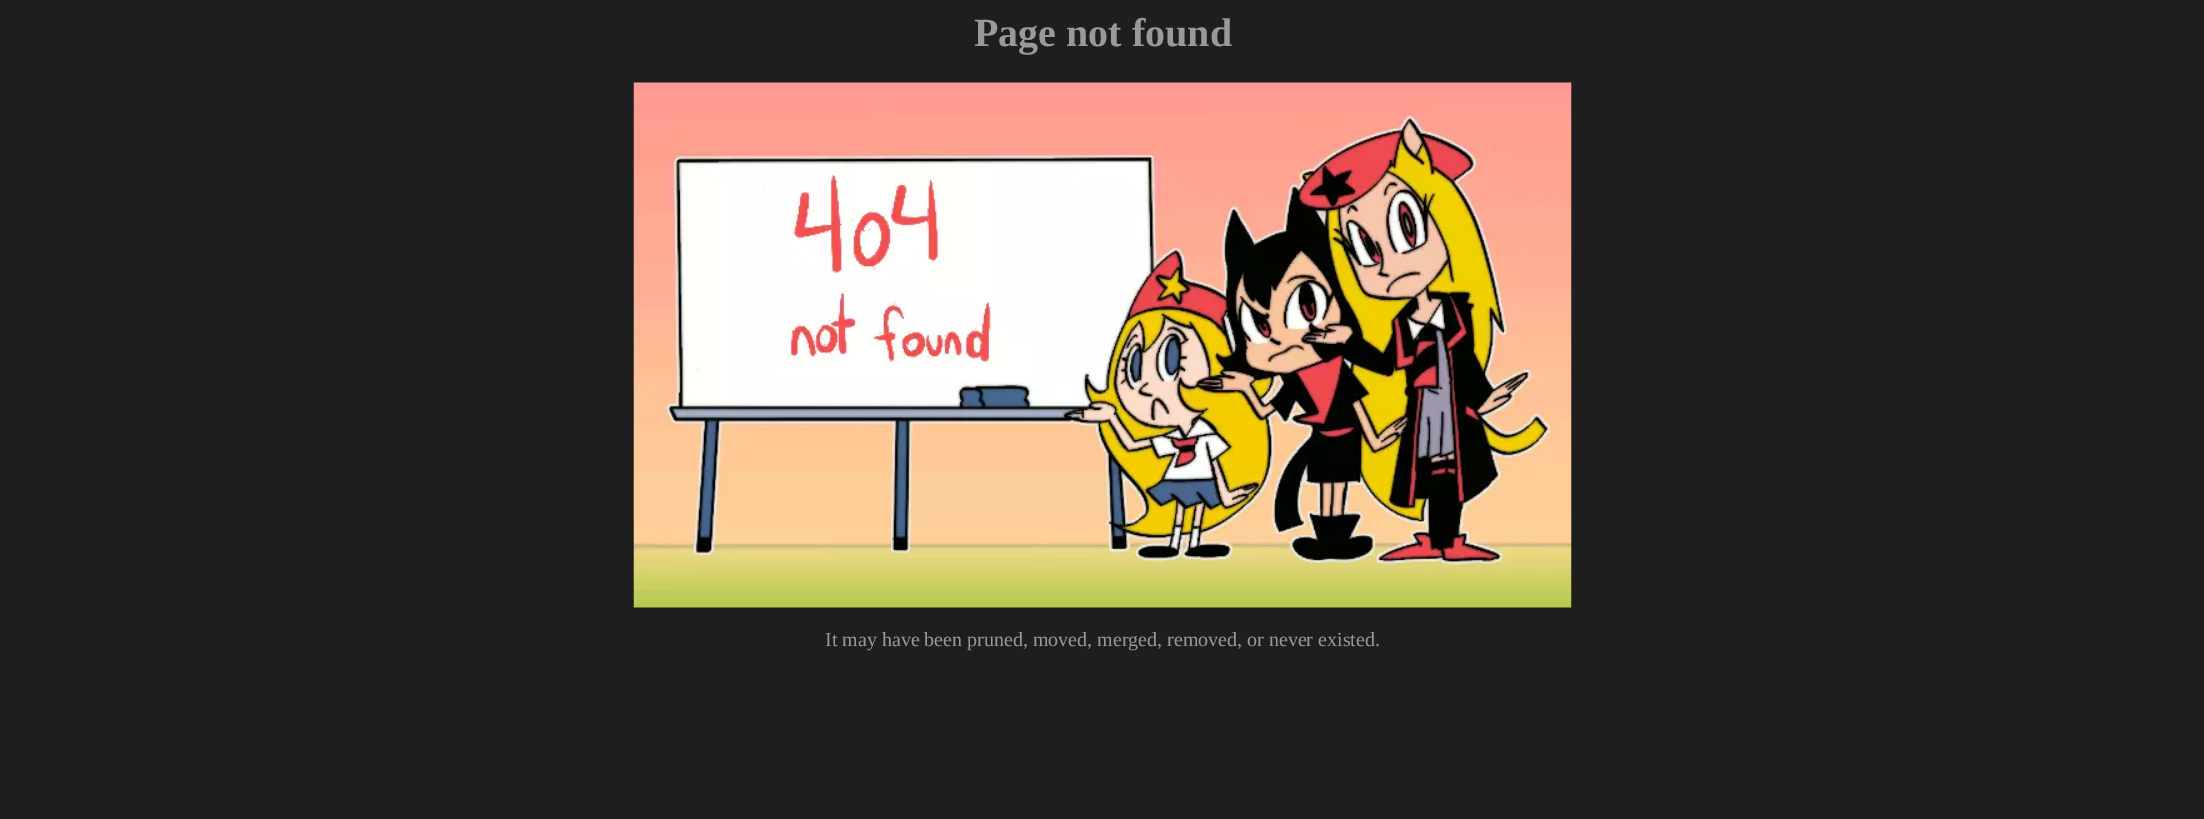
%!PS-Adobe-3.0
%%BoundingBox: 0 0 2204 819
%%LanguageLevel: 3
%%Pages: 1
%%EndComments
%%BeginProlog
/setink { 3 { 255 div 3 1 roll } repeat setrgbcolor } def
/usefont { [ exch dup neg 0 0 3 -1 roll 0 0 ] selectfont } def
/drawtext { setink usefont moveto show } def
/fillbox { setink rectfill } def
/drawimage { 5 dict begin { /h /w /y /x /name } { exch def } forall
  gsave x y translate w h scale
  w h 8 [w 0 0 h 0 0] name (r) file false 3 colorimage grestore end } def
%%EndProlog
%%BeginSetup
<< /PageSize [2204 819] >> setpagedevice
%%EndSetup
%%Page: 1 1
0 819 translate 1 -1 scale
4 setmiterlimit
0 0 2204 819 30 30 30 fillbox
(Page not found) 974 46 /LiberationSerif-Bold 40 153 153 153 drawtext
(assets/img1.rgb) 633 82 939 526 drawimage
(It may have been pruned, moved, merged, removed, or never existed.) 825 646 /LiberationSerif-Regular 20 153 153 153 drawtext
showpage
%%EOF
